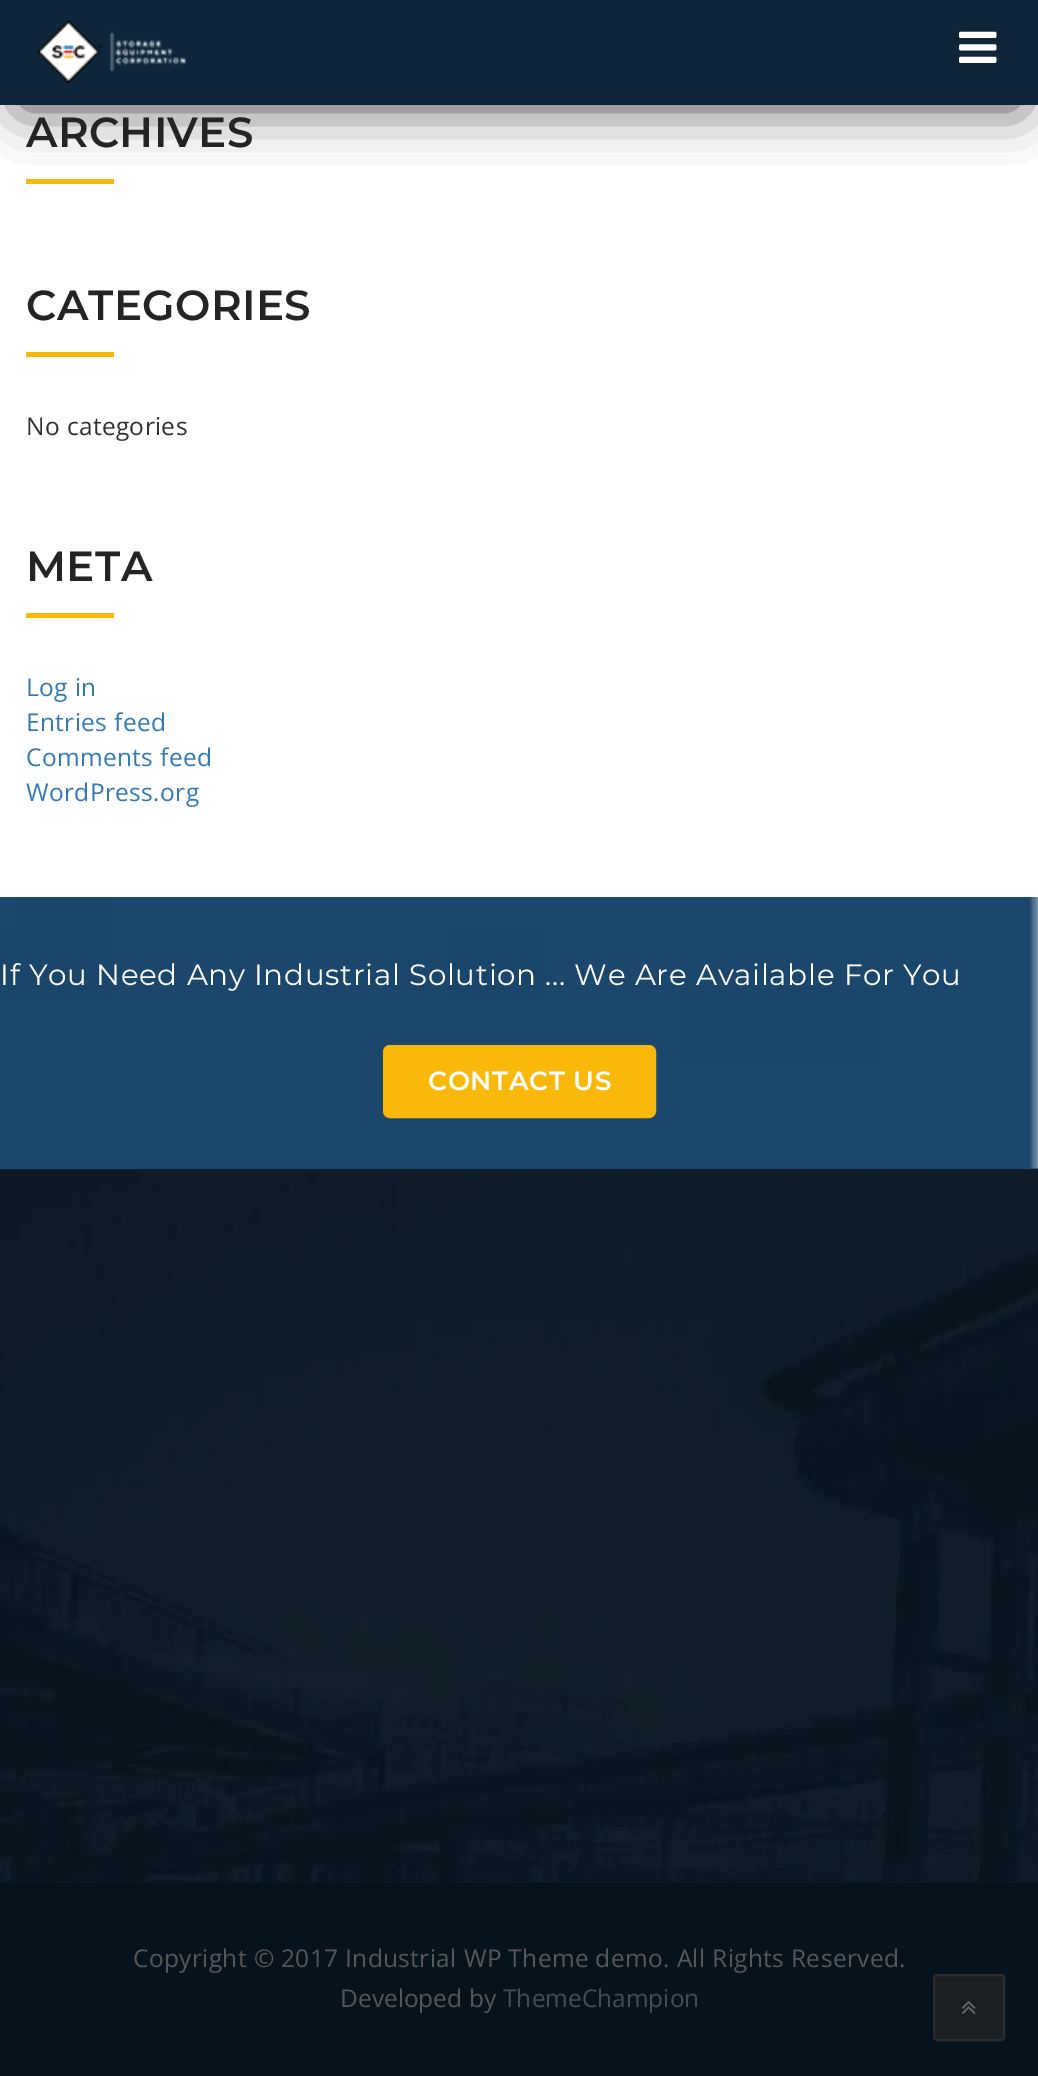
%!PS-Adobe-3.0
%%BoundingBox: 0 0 1038 2076
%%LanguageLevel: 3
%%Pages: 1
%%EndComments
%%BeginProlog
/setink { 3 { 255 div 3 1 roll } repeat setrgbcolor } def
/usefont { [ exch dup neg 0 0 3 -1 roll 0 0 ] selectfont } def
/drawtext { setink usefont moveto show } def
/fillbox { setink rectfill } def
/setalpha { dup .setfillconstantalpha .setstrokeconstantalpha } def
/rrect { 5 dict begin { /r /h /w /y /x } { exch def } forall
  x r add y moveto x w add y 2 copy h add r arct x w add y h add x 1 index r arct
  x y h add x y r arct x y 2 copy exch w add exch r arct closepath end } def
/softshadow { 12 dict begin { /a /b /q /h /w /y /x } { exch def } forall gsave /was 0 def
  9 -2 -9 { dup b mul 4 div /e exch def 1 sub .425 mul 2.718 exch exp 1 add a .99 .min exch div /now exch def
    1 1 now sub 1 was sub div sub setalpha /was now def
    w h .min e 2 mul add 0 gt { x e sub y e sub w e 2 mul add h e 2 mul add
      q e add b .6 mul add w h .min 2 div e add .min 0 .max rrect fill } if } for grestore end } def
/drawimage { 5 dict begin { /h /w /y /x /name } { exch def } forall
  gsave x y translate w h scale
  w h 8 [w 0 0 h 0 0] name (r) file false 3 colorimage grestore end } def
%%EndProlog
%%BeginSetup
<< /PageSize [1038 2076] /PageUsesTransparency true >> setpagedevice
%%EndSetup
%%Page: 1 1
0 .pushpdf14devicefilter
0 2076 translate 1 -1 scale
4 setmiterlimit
0 0 1038 2076 255 255 255 fillbox
26 179 88 5 250 185 10 fillbox
0 0 0 setink
21 44 998 63 0 26 0.75 softshadow
0 0 1038 105 15 38 58 fillbox
(assets/img1.rgb) 35 19 151 65 drawimage
(assets/img2.rgb) 959 31 38 32 drawimage
/Montserrat-SemiBold 42 usefont
36 36 36 setink
26 147 moveto 0.35 0 (ARCHIVES) ashow
26 320 moveto 0.35 0 (CATEGORIES) ashow
26 352 88 5 250 185 10 fillbox
/OpenSans-Regular 24.5 usefont
51 51 51 setink
26 435 moveto 0.35 0 (No categories) ashow
/Montserrat-SemiBold 42 usefont
36 36 36 setink
26 581 moveto 0.35 0 (META) ashow
26 613 88 5 250 185 10 fillbox
/OpenSans-Regular 24.5 usefont
51 122 183 setink
26 696 moveto 0.35 0 (Log in) ashow
26 731 moveto 0.35 0 (Entries feed) ashow
26 766 moveto 0.35 0 (Comments feed) ashow
26 801 moveto 0.35 0 (WordPress.org) ashow
(assets/img4.rgb) 0 1168 1038 714 drawimage
(assets/img3.rgb) 0 897 1038 272 drawimage
/Montserrat-Regular 29.4 usefont
255 255 255 setink
0 985 moveto 0.7 0 (If You Need Any Industrial Solution ... We Are Available For You) ashow
250 185 10 setink
384 1046 271 71 6 rrect gsave fill grestore
2 setlinewidth
stroke
/Montserrat-SemiBold 26.25 usefont
255 255 255 setink
428 1090 moveto 0.7 0 (CONTACT US) ashow
0 1882 1038 1 9 23 35 fillbox
0 1883 1038 193 6 18 28 fillbox
/OpenSans-Regular 24.5 usefont
85 87 89 setink
133 1967 moveto 0.35 0 (Copyright © 2017 Industrial WP Theme demo. All Rights Reserved.) ashow
(Developed by) 340 2007 /OpenSans-Regular 24.5 85 87 89 drawtext
(ThemeChampion) 503 2007 /OpenSans-Regular 24.5 69 77 84 drawtext
28 31 33 setink
934 1975 70 65 3 rrect gsave fill grestore
42 44 46 setink
stroke
(assets/img5.rgb) 961 2001 15 13 drawimage
.poppdf14devicefilter showpage
%%EOF
